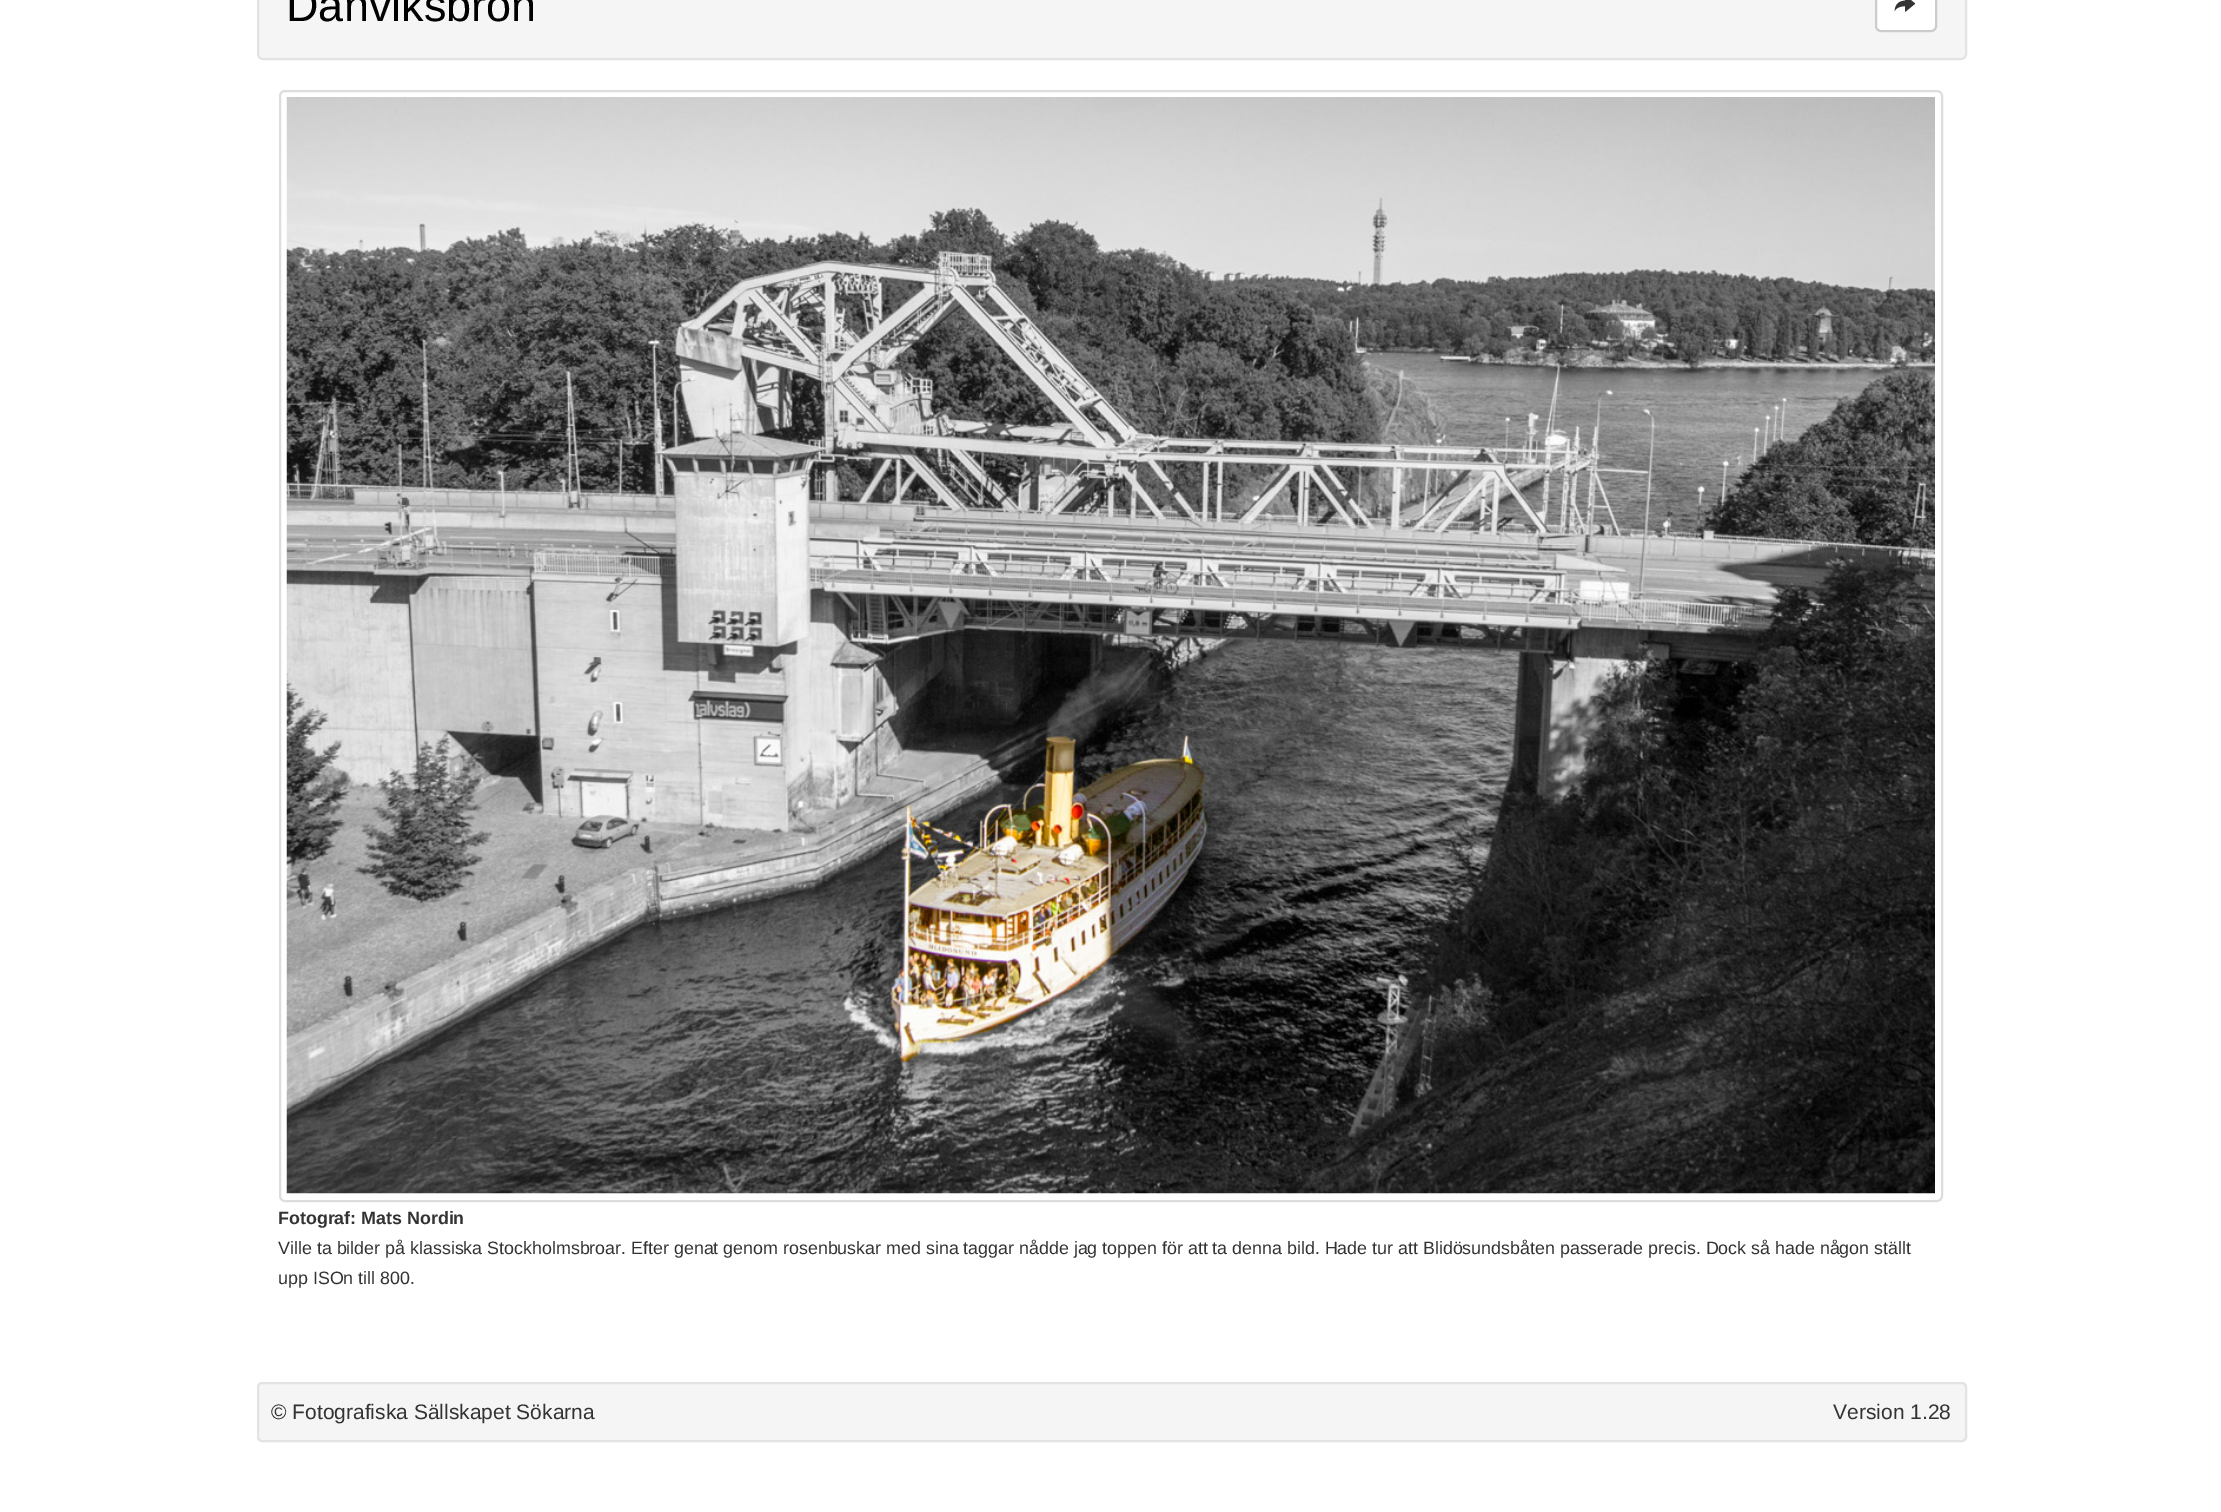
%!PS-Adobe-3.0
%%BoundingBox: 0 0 2221 1512
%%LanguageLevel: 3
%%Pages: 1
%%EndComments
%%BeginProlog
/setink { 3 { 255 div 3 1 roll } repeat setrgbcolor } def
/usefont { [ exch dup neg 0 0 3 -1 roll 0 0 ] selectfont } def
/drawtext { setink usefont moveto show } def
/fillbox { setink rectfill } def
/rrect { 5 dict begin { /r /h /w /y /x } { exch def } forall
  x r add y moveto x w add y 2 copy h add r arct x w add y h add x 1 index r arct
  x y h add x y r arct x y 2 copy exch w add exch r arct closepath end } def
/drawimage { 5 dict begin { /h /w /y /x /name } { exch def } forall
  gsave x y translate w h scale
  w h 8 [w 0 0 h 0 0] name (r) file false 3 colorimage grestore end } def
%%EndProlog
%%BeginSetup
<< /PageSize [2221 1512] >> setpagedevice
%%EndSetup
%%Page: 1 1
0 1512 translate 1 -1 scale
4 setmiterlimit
0 0 2221 1512 255 255 255 fillbox
245 245 245 setink
258 -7 1708 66 5 rrect gsave fill grestore
227 227 227 setink
2 setlinewidth
stroke
(Danviksbron) 286 21 /LiberationSans-Regular 45 0 0 0 drawtext
255 255 255 setink
1876 -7 60 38 5 rrect gsave fill grestore
204 204 204 setink
stroke
(assets/img1.rgb) 1894 0 22 12 drawimage
221 221 221 setink
280 91 1662 1110 5 rrect stroke
(assets/img2.rgb) 286 97 1649 1097 drawimage
(Fotograf: Mats Nordin) 278 1224 /LiberationSans-Bold 17.85 51 51 51 drawtext
(Ville ta bilder på klassiska Stockholmsbroar. Efter genat genom rosenbuskar med sina taggar nådde jag toppen för att ta denna bild. Hade tur att Blidösundsbåten passerade precis. Dock så hade någon ställt) 278 1254 /LiberationSans-Regular 17.85 51 51 51 drawtext
(upp ISOn till 800.) 278 1284 /LiberationSans-Regular 17.85 51 51 51 drawtext
245 245 245 setink
257 1382 1710 60 5 rrect fill
233 233 233 setink
261 1384 moveto 1962 1384 lineto 1964 1384 1965 1386 1965 1388 curveto 1965 1386 lineto 1965 1384 1964 1383 1962 1383 curveto 261 1383 lineto 259 1383 258 1384 258 1386 curveto 258 1388 lineto 258 1386 259 1384 261 1384 curveto closepath fill
227 227 227 setink
258 1383 1708 58 4 rrect stroke
(© Fotografiska Sällskapet Sökarna) 271 1419 /LiberationSans-Regular 21 51 51 51 drawtext
(Version 1.28) 1833 1419 /LiberationSans-Regular 21 51 51 51 drawtext
showpage
%%EOF
